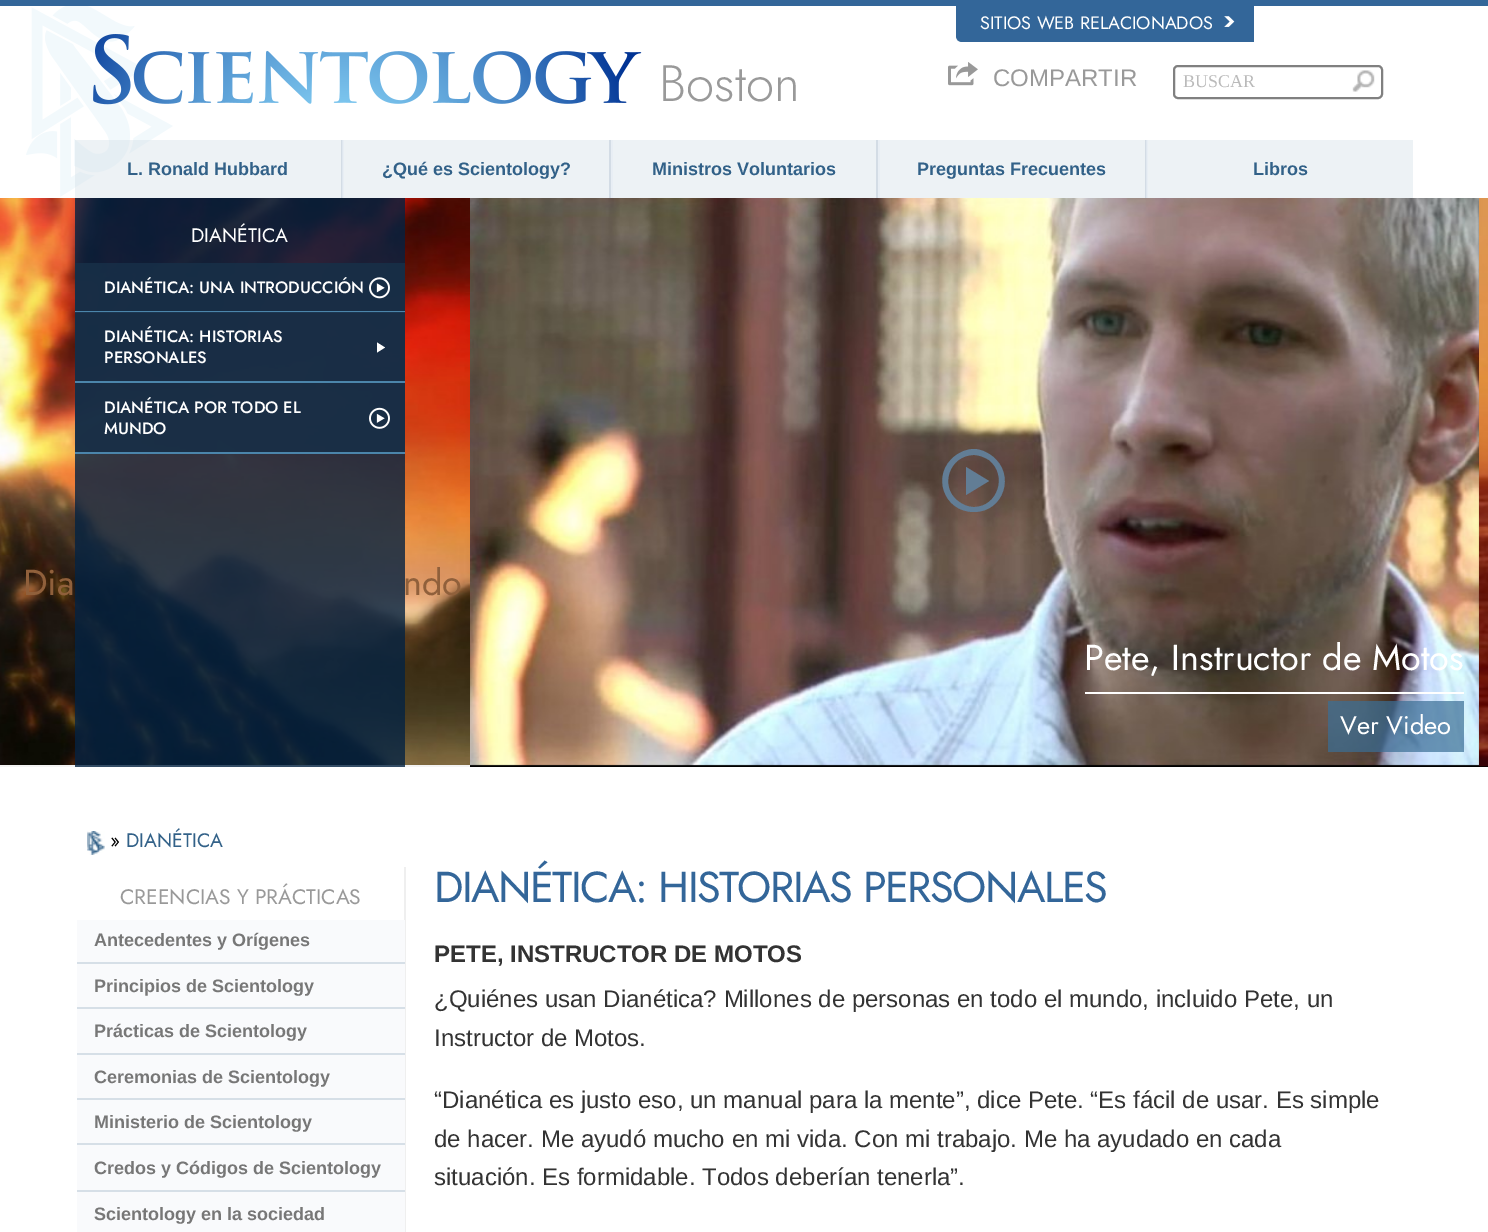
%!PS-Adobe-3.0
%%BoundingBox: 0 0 1488 1232
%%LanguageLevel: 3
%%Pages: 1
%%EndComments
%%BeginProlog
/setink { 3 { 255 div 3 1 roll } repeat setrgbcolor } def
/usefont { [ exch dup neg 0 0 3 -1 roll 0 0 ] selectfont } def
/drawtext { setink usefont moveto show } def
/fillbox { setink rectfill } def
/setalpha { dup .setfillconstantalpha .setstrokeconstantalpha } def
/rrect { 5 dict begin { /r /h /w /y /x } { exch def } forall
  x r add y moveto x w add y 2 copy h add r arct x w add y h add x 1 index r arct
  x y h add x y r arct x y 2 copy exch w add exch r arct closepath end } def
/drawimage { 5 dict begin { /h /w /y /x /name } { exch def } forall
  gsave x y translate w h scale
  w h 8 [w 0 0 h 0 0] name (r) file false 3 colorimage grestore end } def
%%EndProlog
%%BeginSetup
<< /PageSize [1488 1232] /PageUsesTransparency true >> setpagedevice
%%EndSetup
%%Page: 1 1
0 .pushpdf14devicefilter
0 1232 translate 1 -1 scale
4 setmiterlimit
0 0 1488 1232 255 255 255 fillbox
1148 140 265 58 237 242 245 fillbox
1147 140 1 58 232 238 244 fillbox
1146 140 1 58 223 231 239 fillbox
0 0 1488 6 51 102 153 fillbox
956 6 moveto 1254 6 lineto 1254 42 lineto 962 42 lineto 958.5 42 956 39.5 956 36 curveto closepath fill
(SITIOS WEB RELACIONADOS) 980 29 /Jost-Regular 18 255 255 255 drawtext
(assets/img1.rgb) 1224 16 11 11 drawimage
(assets/img2.rgb) 26 6 147 191 drawimage
(assets/img3.rgb) 93 34 549 71 drawimage
(Boston) 659 101 /Jost-Light 51 153 153 153 drawtext
(assets/img4.rgb) 948 62 30 24 drawimage
(COMPARTIR) 993 86 /LiberationSans-Regular 24 153 153 153 drawtext
(assets/img5.rgb) 1352 70 23 22 drawimage
128 128 128 setink
2 setlinewidth
1174 66 208 32 4 rrect stroke
(BUSCAR) 1183 87 /LiberationSerif-Regular 18 186 186 186 drawtext
0.4 setalpha
75 140 267 58 210 222 230 fillbox
0.6 setalpha
341 140 2 58 194 206 219 fillbox
1 setalpha
(L. Ronald Hubbard) 127 175 /LiberationSans-Bold 18 50 97 136 drawtext
0.4 setalpha
342 140 267 58 210 222 230 fillbox
1 setalpha
609 140 2 58 211 220 229 fillbox
0.6 setalpha
342 140 2 58 229 236 243 fillbox
1 setalpha
(¿Qué es Scientology?) 382 175 /LiberationSans-Bold 18 50 97 136 drawtext
613 140 263 58 237 242 245 fillbox
876 140 2 58 211 220 229 fillbox
611 140 2 58 232 238 244 fillbox
(Ministros Voluntarios) 652 175 /LiberationSans-Bold 18 50 97 136 drawtext
880 140 265 58 237 242 245 fillbox
1145 140 1 58 211 220 229 fillbox
878 140 2 58 232 238 244 fillbox
(Preguntas Frecuentes) 917 175 /LiberationSans-Bold 18 50 97 136 drawtext
(Libros) 1253 175 /LiberationSans-Bold 18 50 97 136 drawtext
0 765 470 2 243 243 243 fillbox
(assets/img8.rgb) 0 198 470 567 drawimage
0.8 setalpha
75 198 330 569 3 34 66 fillbox
1 setalpha
(DIANÉTICA) 191 242 /Jost-Regular 19.5 255 255 255 drawtext
0.65 setalpha
75 263 330 48 95 148 202 fillbox
0.7 setalpha
75 263 330 48 3 18 34 fillbox
1 setalpha
75 311 330 2 75 133 171 fillbox
(DIANÉTICA: UNA INTRODUCCIÓN) 104 293 /Jost-Medium 16.5 255 255 255 drawtext
(assets/img6.rgb) 369 277 21 22 drawimage
0.65 setalpha
75 312 330 69 95 148 202 fillbox
0.7 setalpha
75 312 330 69 3 18 34 fillbox
1 setalpha
75 381 330 2 75 133 171 fillbox
(DIANÉTICA: HISTORIAS) 104 342 /Jost-Medium 16.5 255 255 255 drawtext
377 342.5 moveto 377 352.5 lineto 385 347.5 lineto closepath fill
(PERSONALES) 104 363 /Jost-Medium 16.5 255 255 255 drawtext
0.65 setalpha
75 383 330 69 95 148 202 fillbox
0.7 setalpha
75 383 330 69 3 18 34 fillbox
1 setalpha
75 452 330 2 75 133 171 fillbox
(DIANÉTICA POR TODO EL) 104 413 /Jost-Medium 16.5 255 255 255 drawtext
(assets/img7.rgb) 369 407 21 22 drawimage
(MUNDO) 104 434 /Jost-Medium 16.5 255 255 255 drawtext
(Dia) 23 595 /Jost-Regular 36 144 96 59 drawtext
(ndo) 403 595 /Jost-Regular 36 144 96 59 drawtext
1479 766 9 1 0 0 0 fillbox
(assets/img9.rgb) 1479 198 9 569 drawimage
470 198 1009 569 0 0 0 fillbox
(assets/img10.rgb) 470 198 1009 568 drawimage
98 125 149 setink
974 449 moveto 967 449 960 452 955 456 curveto 931 474 943 512 974 512 curveto 1004 512 1016 474 992 456 curveto 987 452 980 449 974 449 curveto closepath 974 507 moveto 968 507 963 505 958 501 curveto 939 487 949 455 974 455 curveto 979 455 984 457 989 460 curveto 1008 475 998 507 974 507 curveto closepath 966 467 moveto 989 481 lineto 966 495 lineto closepath fill
1085 692 379 2 255 255 255 fillbox
(Pete, Instructor de Motos) 1084 670 /Jost-Regular 36 255 255 255 drawtext
0.7 setalpha
1328 701 136 51 58 110 149 fillbox
1 setalpha
(Ver Video) 1340 734 /Jost-Regular 25.5 255 255 255 drawtext
(assets/img11.rgb) 87 831 18 24 drawimage
(») 110 847 /Jost-Regular 19.5 0 0 0 drawtext
(DIANÉTICA) 126 847 /Jost-Regular 19.5 50 97 136 drawtext
404 867 2 365 239 239 239 fillbox
(CREENCIAS Y PRÁCTICAS) 120 904 /Jost-Regular 21 153 153 153 drawtext
77 920 328 312 249 250 252 fillbox
77 962 328 2 214 223 231 fillbox
(Antecedentes y Orígenes) 94 946 /LiberationSans-Bold 18 119 119 119 drawtext
77 1007 328 2 214 223 231 fillbox
(Principios de Scientology) 94 992 /LiberationSans-Bold 18 119 119 119 drawtext
77 1053 328 2 214 223 231 fillbox
(Prácticas de Scientology) 94 1037 /LiberationSans-Bold 18 119 119 119 drawtext
77 1098 328 2 214 223 231 fillbox
(Ceremonias de Scientology) 94 1083 /LiberationSans-Bold 18 119 119 119 drawtext
77 1143 328 2 214 223 231 fillbox
(Ministerio de Scientology) 94 1128 /LiberationSans-Bold 18 119 119 119 drawtext
77 1190 328 2 214 223 231 fillbox
(Credos y Códigos de Scientology) 94 1174 /LiberationSans-Bold 18 119 119 119 drawtext
(Scientology en la sociedad) 94 1220 /LiberationSans-Bold 18 119 119 119 drawtext
/Jost-Regular 43.25 usefont
51 102 153 setink
434 902 moveto -1.5 0 (DIANÉTICA: HISTORIAS PERSONALES) ashow
(PETE, INSTRUCTOR DE MOTOS) 434 962 /LiberationSans-Bold 24 51 51 51 drawtext
(¿Quiénes usan Dianética? Millones de personas en todo el mundo, incluido Pete, un) 434 1007 /LiberationSans-Regular 24 51 51 51 drawtext
(Instructor de Motos.) 434 1046 /LiberationSans-Regular 24 51 51 51 drawtext
(“Dianética es justo eso, un manual para la mente”, dice Pete. “Es fácil de usar. Es simple) 434 1108 /LiberationSans-Regular 24 51 51 51 drawtext
(de hacer. Me ayudó mucho en mi vida. Con mi trabajo. Me ha ayudado en cada) 434 1147 /LiberationSans-Regular 24 51 51 51 drawtext
(situación. Es formidable. Todos deberían tenerla”.) 434 1185 /LiberationSans-Regular 24 51 51 51 drawtext
.poppdf14devicefilter showpage
%%EOF
